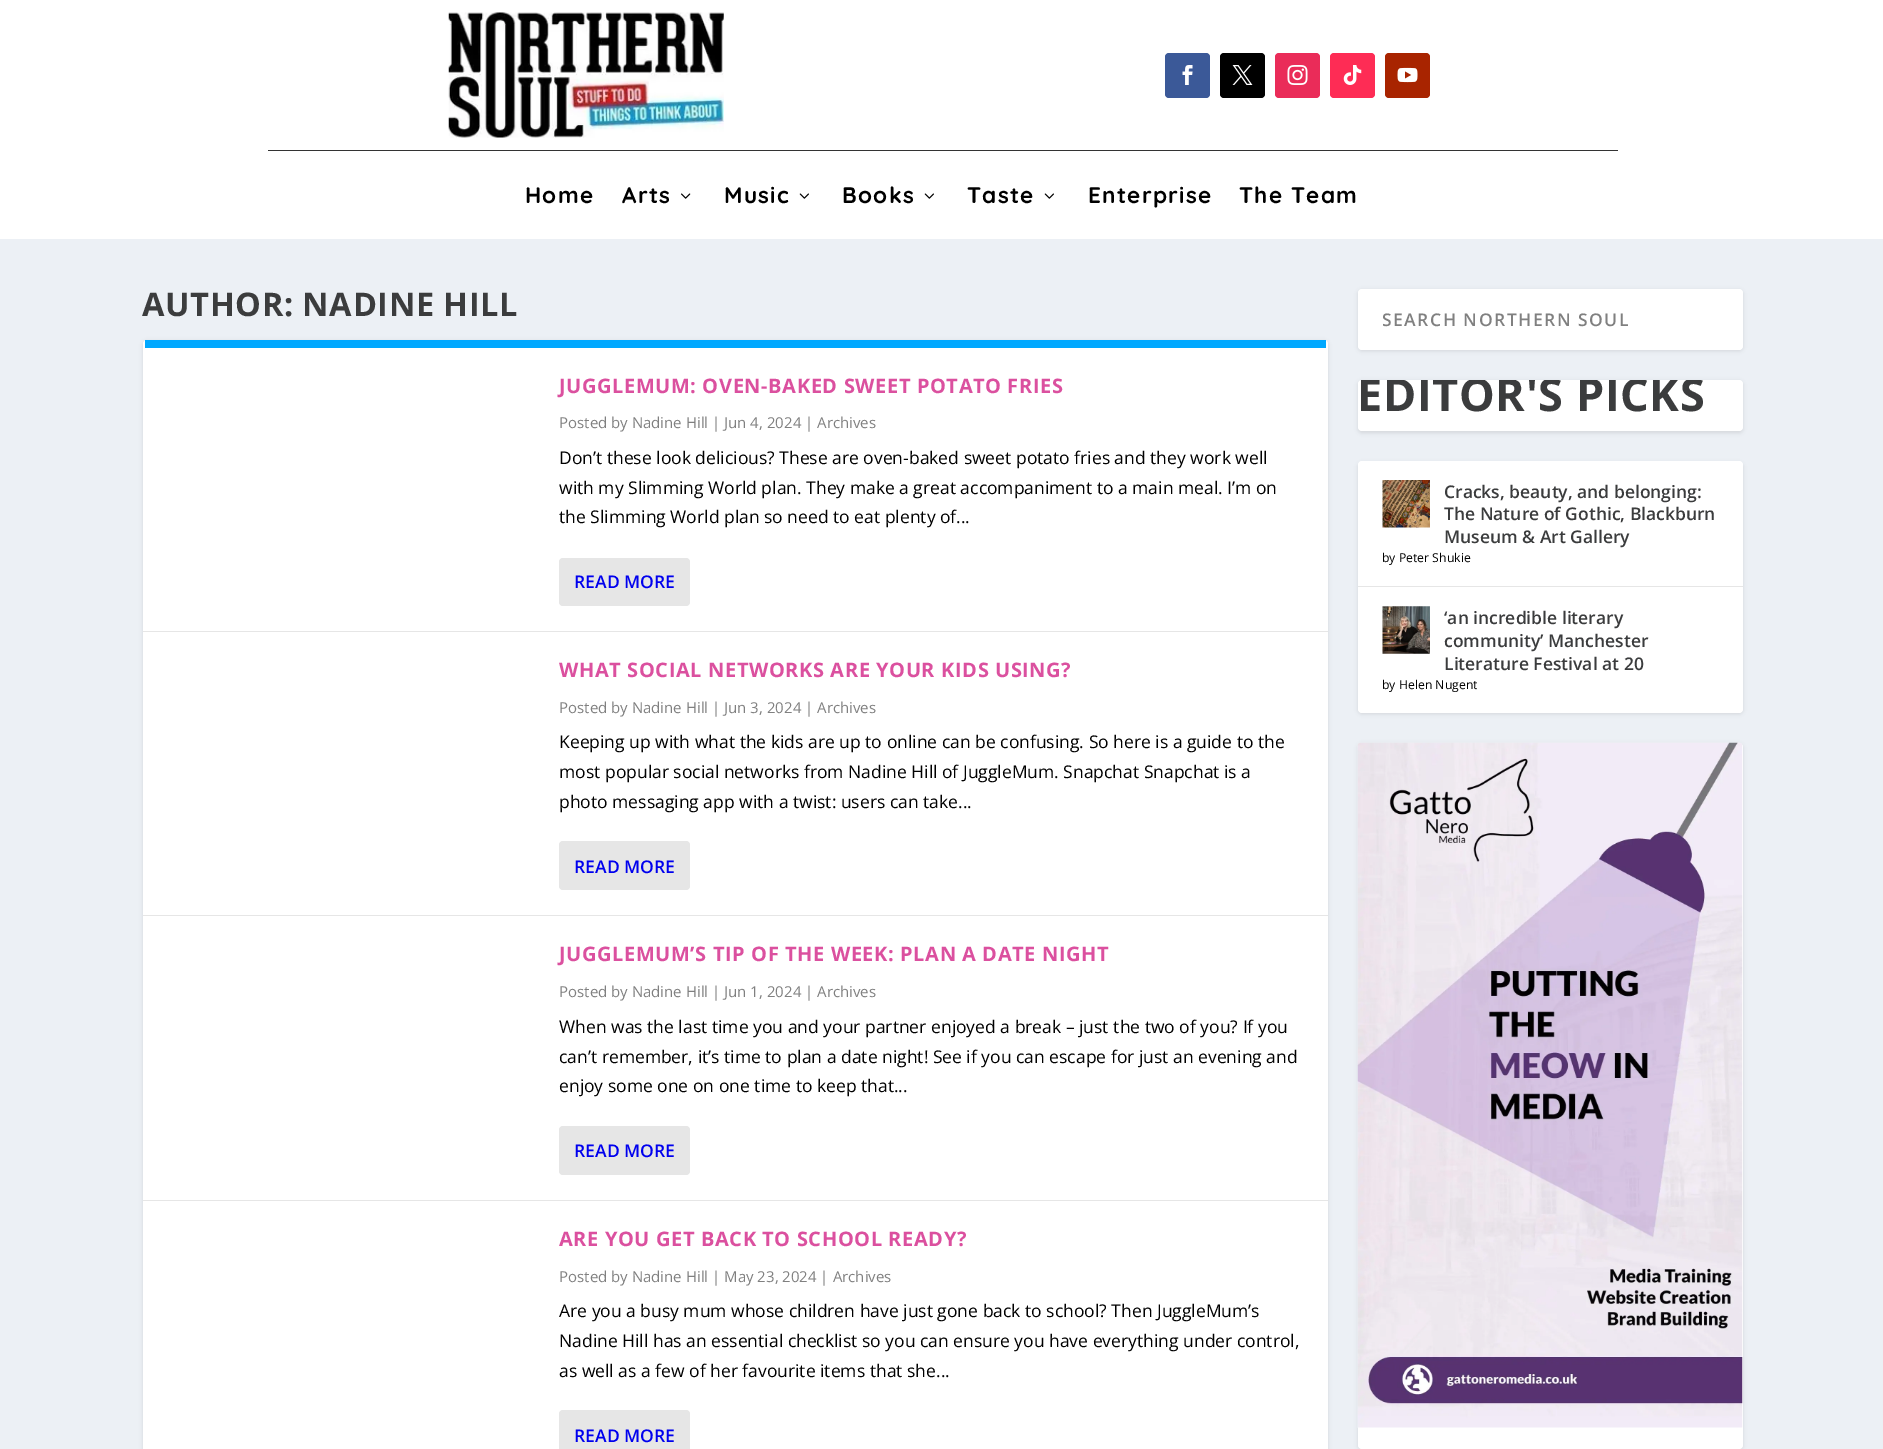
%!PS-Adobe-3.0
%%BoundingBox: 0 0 1883 1449
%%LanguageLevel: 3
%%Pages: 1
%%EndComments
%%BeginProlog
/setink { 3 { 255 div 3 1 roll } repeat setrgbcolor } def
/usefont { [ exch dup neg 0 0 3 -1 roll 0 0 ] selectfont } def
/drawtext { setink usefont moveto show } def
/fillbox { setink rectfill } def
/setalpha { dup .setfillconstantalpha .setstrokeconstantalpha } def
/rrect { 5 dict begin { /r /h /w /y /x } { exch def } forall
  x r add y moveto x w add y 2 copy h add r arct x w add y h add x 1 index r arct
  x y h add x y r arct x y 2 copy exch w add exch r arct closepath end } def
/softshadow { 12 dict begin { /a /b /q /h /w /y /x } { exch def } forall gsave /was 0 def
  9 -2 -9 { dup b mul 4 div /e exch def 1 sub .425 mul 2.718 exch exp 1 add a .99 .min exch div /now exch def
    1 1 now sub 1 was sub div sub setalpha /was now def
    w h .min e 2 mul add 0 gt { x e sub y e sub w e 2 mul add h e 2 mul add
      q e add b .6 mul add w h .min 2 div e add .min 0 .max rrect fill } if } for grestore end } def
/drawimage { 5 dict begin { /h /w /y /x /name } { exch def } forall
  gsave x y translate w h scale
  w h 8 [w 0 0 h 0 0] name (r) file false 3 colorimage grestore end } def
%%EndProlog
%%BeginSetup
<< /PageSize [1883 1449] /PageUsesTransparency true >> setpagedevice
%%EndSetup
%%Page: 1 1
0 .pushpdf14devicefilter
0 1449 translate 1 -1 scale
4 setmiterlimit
0 0 1883 1449 236 240 245 fillbox
0 0 1883 239 255 255 255 fillbox
268 150 1350 1 51 51 51 fillbox
(assets/img1.rgb) 448 12 276 126 drawimage
59 89 152 setink
1165 53 45 45 4 rrect fill
(assets/img2.rgb) 1182 65 11 20 drawimage
0 0 0 setink
1220 53 45 45 4 rrect fill
(assets/img3.rgb) 1232 65 21 20 drawimage
234 44 89 setink
1275 53 45 45 4 rrect fill
(assets/img4.rgb) 1287 65 21 20 drawimage
254 44 85 setink
1330 53 45 45 4 rrect fill
(assets/img5.rgb) 1343 65 19 20 drawimage
168 36 0 setink
1385 53 45 45 4 rrect fill
(assets/img6.rgb) 1397 67 21 16 drawimage
/Quicksand-Bold 22.5 usefont
0 0 0 setink
525 203 moveto 1.25 0 (Home) ashow
622 203 moveto 1.25 0 (Arts) ashow
(assets/img7.rgb) 681 193 10 6 drawimage
724 203 moveto 1.25 0 (Music) ashow
(assets/img8.rgb) 799 193 10 6 drawimage
842 203 moveto 1.25 0 (Books) ashow
(assets/img8.rgb) 924 193 10 6 drawimage
967 203 moveto 1.25 0 (Taste) ashow
(assets/img8.rgb) 1044 193 10 6 drawimage
1088 203 moveto 1.25 0 (Enterprise) ashow
1239 203 moveto 1.25 0 (The Team) ashow
/OpenSans-Bold 32.5 usefont
59 60 61 setink
142 316 moveto 0.6 0 (AUTHOR: NADINE HILL) ashow
0 0 0 setink
143 341 1185 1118 4 2 0.1 softshadow
255 255 255 setink
143 340 1185 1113 4 rrect fill
145 340 1181 8 0 168 255 fillbox
143 631 1185 1 230 230 230 fillbox
/OpenSans-Bold 20 usefont
219 80 159 setink
559 393 moveto 0.6 0 (JUGGLEMUM: OVEN-BAKED SWEET POTATO FRIES) ashow
(Posted by Nadine Hill | Jun 4, 2024 | Archives) 559 428 /OpenSans-Regular 15 128 128 128 drawtext
(Don’t these look delicious? These are oven-baked sweet potato fries and they work well) 559 464 /OpenSans-Regular 17.5 0 0 0 drawtext
(with my Slimming World plan. They make a great accompaniment to a main meal. I’m on) 559 494 /OpenSans-Regular 17.5 0 0 0 drawtext
(the Slimming World plan so need to eat plenty of...) 559 523 /OpenSans-Regular 17.5 0 0 0 drawtext
230 230 230 setink
559 558 131 48 4 rrect fill
(READ MORE) 574 588 /OpenSans-SemiBold 17.5 0 0 238 drawtext
143 915 1185 1 230 230 230 fillbox
/OpenSans-Bold 20 usefont
219 80 159 setink
559 677 moveto 0.6 0 (WHAT SOCIAL NETWORKS ARE YOUR KIDS USING?) ashow
(Posted by Nadine Hill | Jun 3, 2024 | Archives) 559 713 /OpenSans-Regular 15 128 128 128 drawtext
(Keeping up with what the kids are up to online can be confusing. So here is a guide to the) 559 748 /OpenSans-Regular 17.5 0 0 0 drawtext
(most popular social networks from Nadine Hill of JuggleMum. Snapchat Snapchat is a) 559 778 /OpenSans-Regular 17.5 0 0 0 drawtext
(photo messaging app with a twist: users can take...) 559 808 /OpenSans-Regular 17.5 0 0 0 drawtext
230 230 230 setink
559 841 131 49 4 rrect fill
(READ MORE) 574 873 /OpenSans-SemiBold 17.5 0 0 238 drawtext
143 1200 1185 1 230 230 230 fillbox
/OpenSans-Bold 20 usefont
219 80 159 setink
559 961 moveto 0.6 0 (JUGGLEMUM’S TIP OF THE WEEK: PLAN A DATE NIGHT) ashow
(Posted by Nadine Hill | Jun 1, 2024 | Archives) 559 997 /OpenSans-Regular 15 128 128 128 drawtext
(When was the last time you and your partner enjoyed a break – just the two of you? If you) 559 1033 /OpenSans-Regular 17.5 0 0 0 drawtext
(can’t remember, it’s time to plan a date night! See if you can escape for just an evening and) 559 1063 /OpenSans-Regular 17.5 0 0 0 drawtext
(enjoy some one on one time to keep that...) 559 1092 /OpenSans-Regular 17.5 0 0 0 drawtext
230 230 230 setink
559 1126 131 49 4 rrect fill
(READ MORE) 574 1157 /OpenSans-SemiBold 17.5 0 0 238 drawtext
/OpenSans-Bold 20 usefont
219 80 159 setink
559 1246 moveto 0.6 0 (ARE YOU GET BACK TO SCHOOL READY?) ashow
(Posted by Nadine Hill | May 23, 2024 | Archives) 559 1282 /OpenSans-Regular 15 128 128 128 drawtext
(Are you a busy mum whose children have just gone back to school? Then JuggleMum’s) 559 1317 /OpenSans-Regular 17.5 0 0 0 drawtext
(Nadine Hill has an essential checklist so you can ensure you have everything under control,) 559 1347 /OpenSans-Regular 17.5 0 0 0 drawtext
(as well as a few of her favourite items that she...) 559 1377 /OpenSans-Regular 17.5 0 0 0 drawtext
230 230 230 setink
559 1410 131 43 4 rrect fill
(READ MORE) 574 1442 /OpenSans-SemiBold 17.5 0 0 238 drawtext
0 0 0 setink
1358 290 385 61 4 2 0.1 softshadow
255 255 255 setink
1358 289 385 61 4 rrect fill
gsave
1383 308 335 23 rectclip
128 128 128 setink
1382 326 moveto 1.5 0 (SEARCH NORTHERN SOUL) ashow
grestore
0 0 0 setink
1358 381 385 52 4 2 0.1 softshadow
255 255 255 setink
1358 380 385 51 4 rrect fill
gsave
1358 380 385 51 4 rrect clip newpath
/OpenSans-Bold 45 usefont
59 60 61 setink
1357 411 moveto 0.6 0 (EDITOR'S PICKS) ashow
grestore
0 0 0 setink
1358 463 385 251 4 2 0.1 softshadow
255 255 255 setink
1358 461 385 252 4 rrect fill
1358 586 385 1 230 230 230 fillbox
(assets/img9.rgb) 1382 480 48 48 drawimage
(Cracks, beauty, and belonging:) 1444 498 /OpenSans-SemiBold 17.5 59 60 61 drawtext
(The Nature of Gothic, Blackburn) 1444 520 /OpenSans-SemiBold 17.5 59 60 61 drawtext
(Museum & Art Gallery) 1444 543 /OpenSans-SemiBold 17.5 59 60 61 drawtext
(by Peter Shukie) 1382 562 /OpenSans-Regular 12.25 0 0 0 drawtext
(assets/img10.rgb) 1382 606 48 48 drawimage
(‘an incredible literary) 1444 624 /OpenSans-SemiBold 17.5 59 60 61 drawtext
(community’ Manchester) 1444 647 /OpenSans-SemiBold 17.5 59 60 61 drawtext
(Literature Festival at 20) 1444 670 /OpenSans-SemiBold 17.5 59 60 61 drawtext
(by Helen Nugent) 1382 689 /OpenSans-Regular 12.25 0 0 0 drawtext
1358 744 385 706 4 2 0.1 softshadow
255 255 255 setink
1358 743 385 706 4 rrect fill
(assets/img11.rgb) 1357 742 386 686 drawimage
.poppdf14devicefilter showpage
%%EOF
